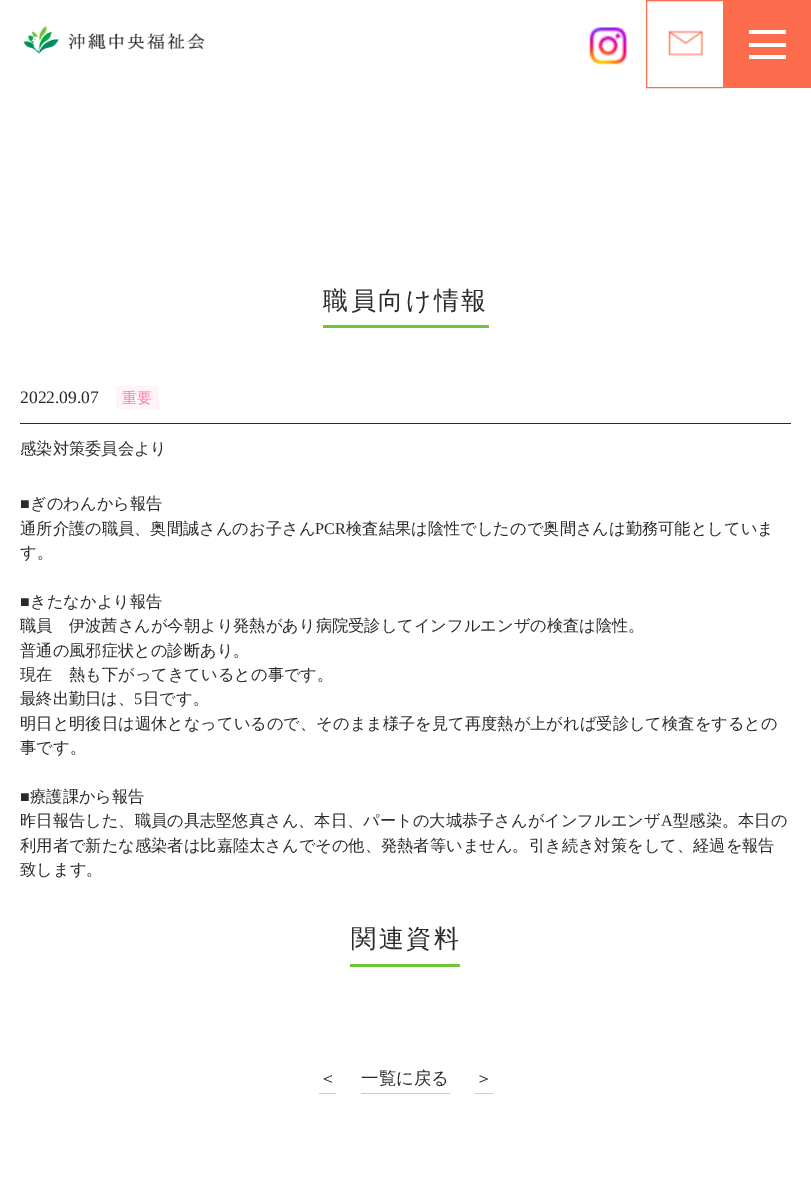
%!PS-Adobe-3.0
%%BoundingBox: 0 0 811 1179
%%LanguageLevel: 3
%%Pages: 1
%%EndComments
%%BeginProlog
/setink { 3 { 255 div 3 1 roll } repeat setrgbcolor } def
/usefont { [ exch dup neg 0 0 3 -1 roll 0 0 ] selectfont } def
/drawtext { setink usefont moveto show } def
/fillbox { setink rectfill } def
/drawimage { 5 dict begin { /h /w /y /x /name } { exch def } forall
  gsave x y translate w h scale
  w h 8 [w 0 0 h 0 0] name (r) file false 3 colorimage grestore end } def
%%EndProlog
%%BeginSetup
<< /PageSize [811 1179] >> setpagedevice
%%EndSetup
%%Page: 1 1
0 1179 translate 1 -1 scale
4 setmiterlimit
0 0 811 1179 255 255 255 fillbox
(assets/img1.rgb) 23 26 182 28 drawimage
(assets/img2.rgb) 589 27 38 38 drawimage
252 108 77 setink
646.5 0.5 77 87 rectstroke
(assets/img3.rgb) 668 30 35 26 drawimage
724 0 87 88 252 108 77 fillbox
749 43 37 4 255 255 255 fillbox
749 30 37 4 255 255 255 fillbox
749 55 37 4 255 255 255 fillbox
323 325 166 3 112 196 57 fillbox
/WenQuanYiZenHei-Medium 25 usefont
42 42 42 setink
323 309 moveto 2.5 0 (職員向け情報) ashow
20 423 771 1 42 42 42 fillbox
(2022.09.07) 20 403 /LiberationSerif-Regular 17.5 42 42 42 drawtext
116 386 43 23 255 244 248 fillbox
(重要) 122 403 /WenQuanYiZenHei-Medium 15 255 123 173 drawtext
(感染対策委員会より) 20 454 /WenQuanYiZenHei-Medium 16.25 42 42 42 drawtext
(■) 20 509 /LiberationSerif-Regular 16.25 42 42 42 drawtext
(ぎのわんから報告) 30 509 /WenQuanYiZenHei-Medium 16.25 42 42 42 drawtext
(通所介護の職員、奥間誠さんのお子さん) 20 534 /WenQuanYiZenHei-Medium 16.25 42 42 42 drawtext
(PCR) 315 534 /LiberationSerif-Regular 16.25 42 42 42 drawtext
(検査結果は陰性でしたので奥間さんは勤務可能としていま) 346 534 /WenQuanYiZenHei-Medium 16.25 42 42 42 drawtext
(す。) 20 558 /WenQuanYiZenHei-Medium 16.25 42 42 42 drawtext
(■) 20 607 /LiberationSerif-Regular 16.25 42 42 42 drawtext
(きたなかより報告) 30 607 /WenQuanYiZenHei-Medium 16.25 42 42 42 drawtext
(職員　伊波茜さんが今朝より発熱があり病院受診してインフルエンザの検査は陰性。) 20 631 /WenQuanYiZenHei-Medium 16.25 42 42 42 drawtext
(普通の風邪症状との診断あり。) 20 656 /WenQuanYiZenHei-Medium 16.25 42 42 42 drawtext
(現在　熱も下がってきているとの事です。) 20 680 /WenQuanYiZenHei-Medium 16.25 42 42 42 drawtext
(最終出勤日は、) 20 704 /WenQuanYiZenHei-Medium 16.25 42 42 42 drawtext
(5) 134 704 /LiberationSerif-Regular 16.25 42 42 42 drawtext
(日です。) 143 704 /WenQuanYiZenHei-Medium 16.25 42 42 42 drawtext
(明日と明後日は週休となっているので、そのまま様子を見て再度熱が上がれば受診して検査をするとの) 20 729 /WenQuanYiZenHei-Medium 16.25 42 42 42 drawtext
(事です。) 20 753 /WenQuanYiZenHei-Medium 16.25 42 42 42 drawtext
(■) 20 802 /LiberationSerif-Regular 16.25 42 42 42 drawtext
(療護課から報告) 30 802 /WenQuanYiZenHei-Medium 16.25 42 42 42 drawtext
(昨日報告した、職員の具志堅悠真さん、本日、パートの大城恭子さんがインフルエンザ) 20 826 /WenQuanYiZenHei-Medium 16.25 42 42 42 drawtext
(A) 661 826 /LiberationSerif-Regular 16.25 42 42 42 drawtext
(型感染。本日の) 673 826 /WenQuanYiZenHei-Medium 16.25 42 42 42 drawtext
(利用者で新たな感染者は比嘉陸太さんでその他、発熱者等いません。引き続き対策をして、経過を報告) 20 851 /WenQuanYiZenHei-Medium 16.25 42 42 42 drawtext
(致します。) 20 875 /WenQuanYiZenHei-Medium 16.25 42 42 42 drawtext
350 964 110 3 112 196 57 fillbox
/WenQuanYiZenHei-Medium 25 usefont
42 42 42 setink
351 947 moveto 2.5 0 (関連資料) ashow
319 1093 17 1 204 204 204 fillbox
(＜) 319 1084 /WenQuanYiZenHei-Medium 17.5 42 42 42 drawtext
361 1093 89 1 204 204 204 fillbox
(一覧に戻る) 361 1084 /WenQuanYiZenHei-Medium 17.5 42 42 42 drawtext
475 1093 18 1 204 204 204 fillbox
(＞) 475 1084 /WenQuanYiZenHei-Medium 17.5 42 42 42 drawtext
showpage
%%EOF
